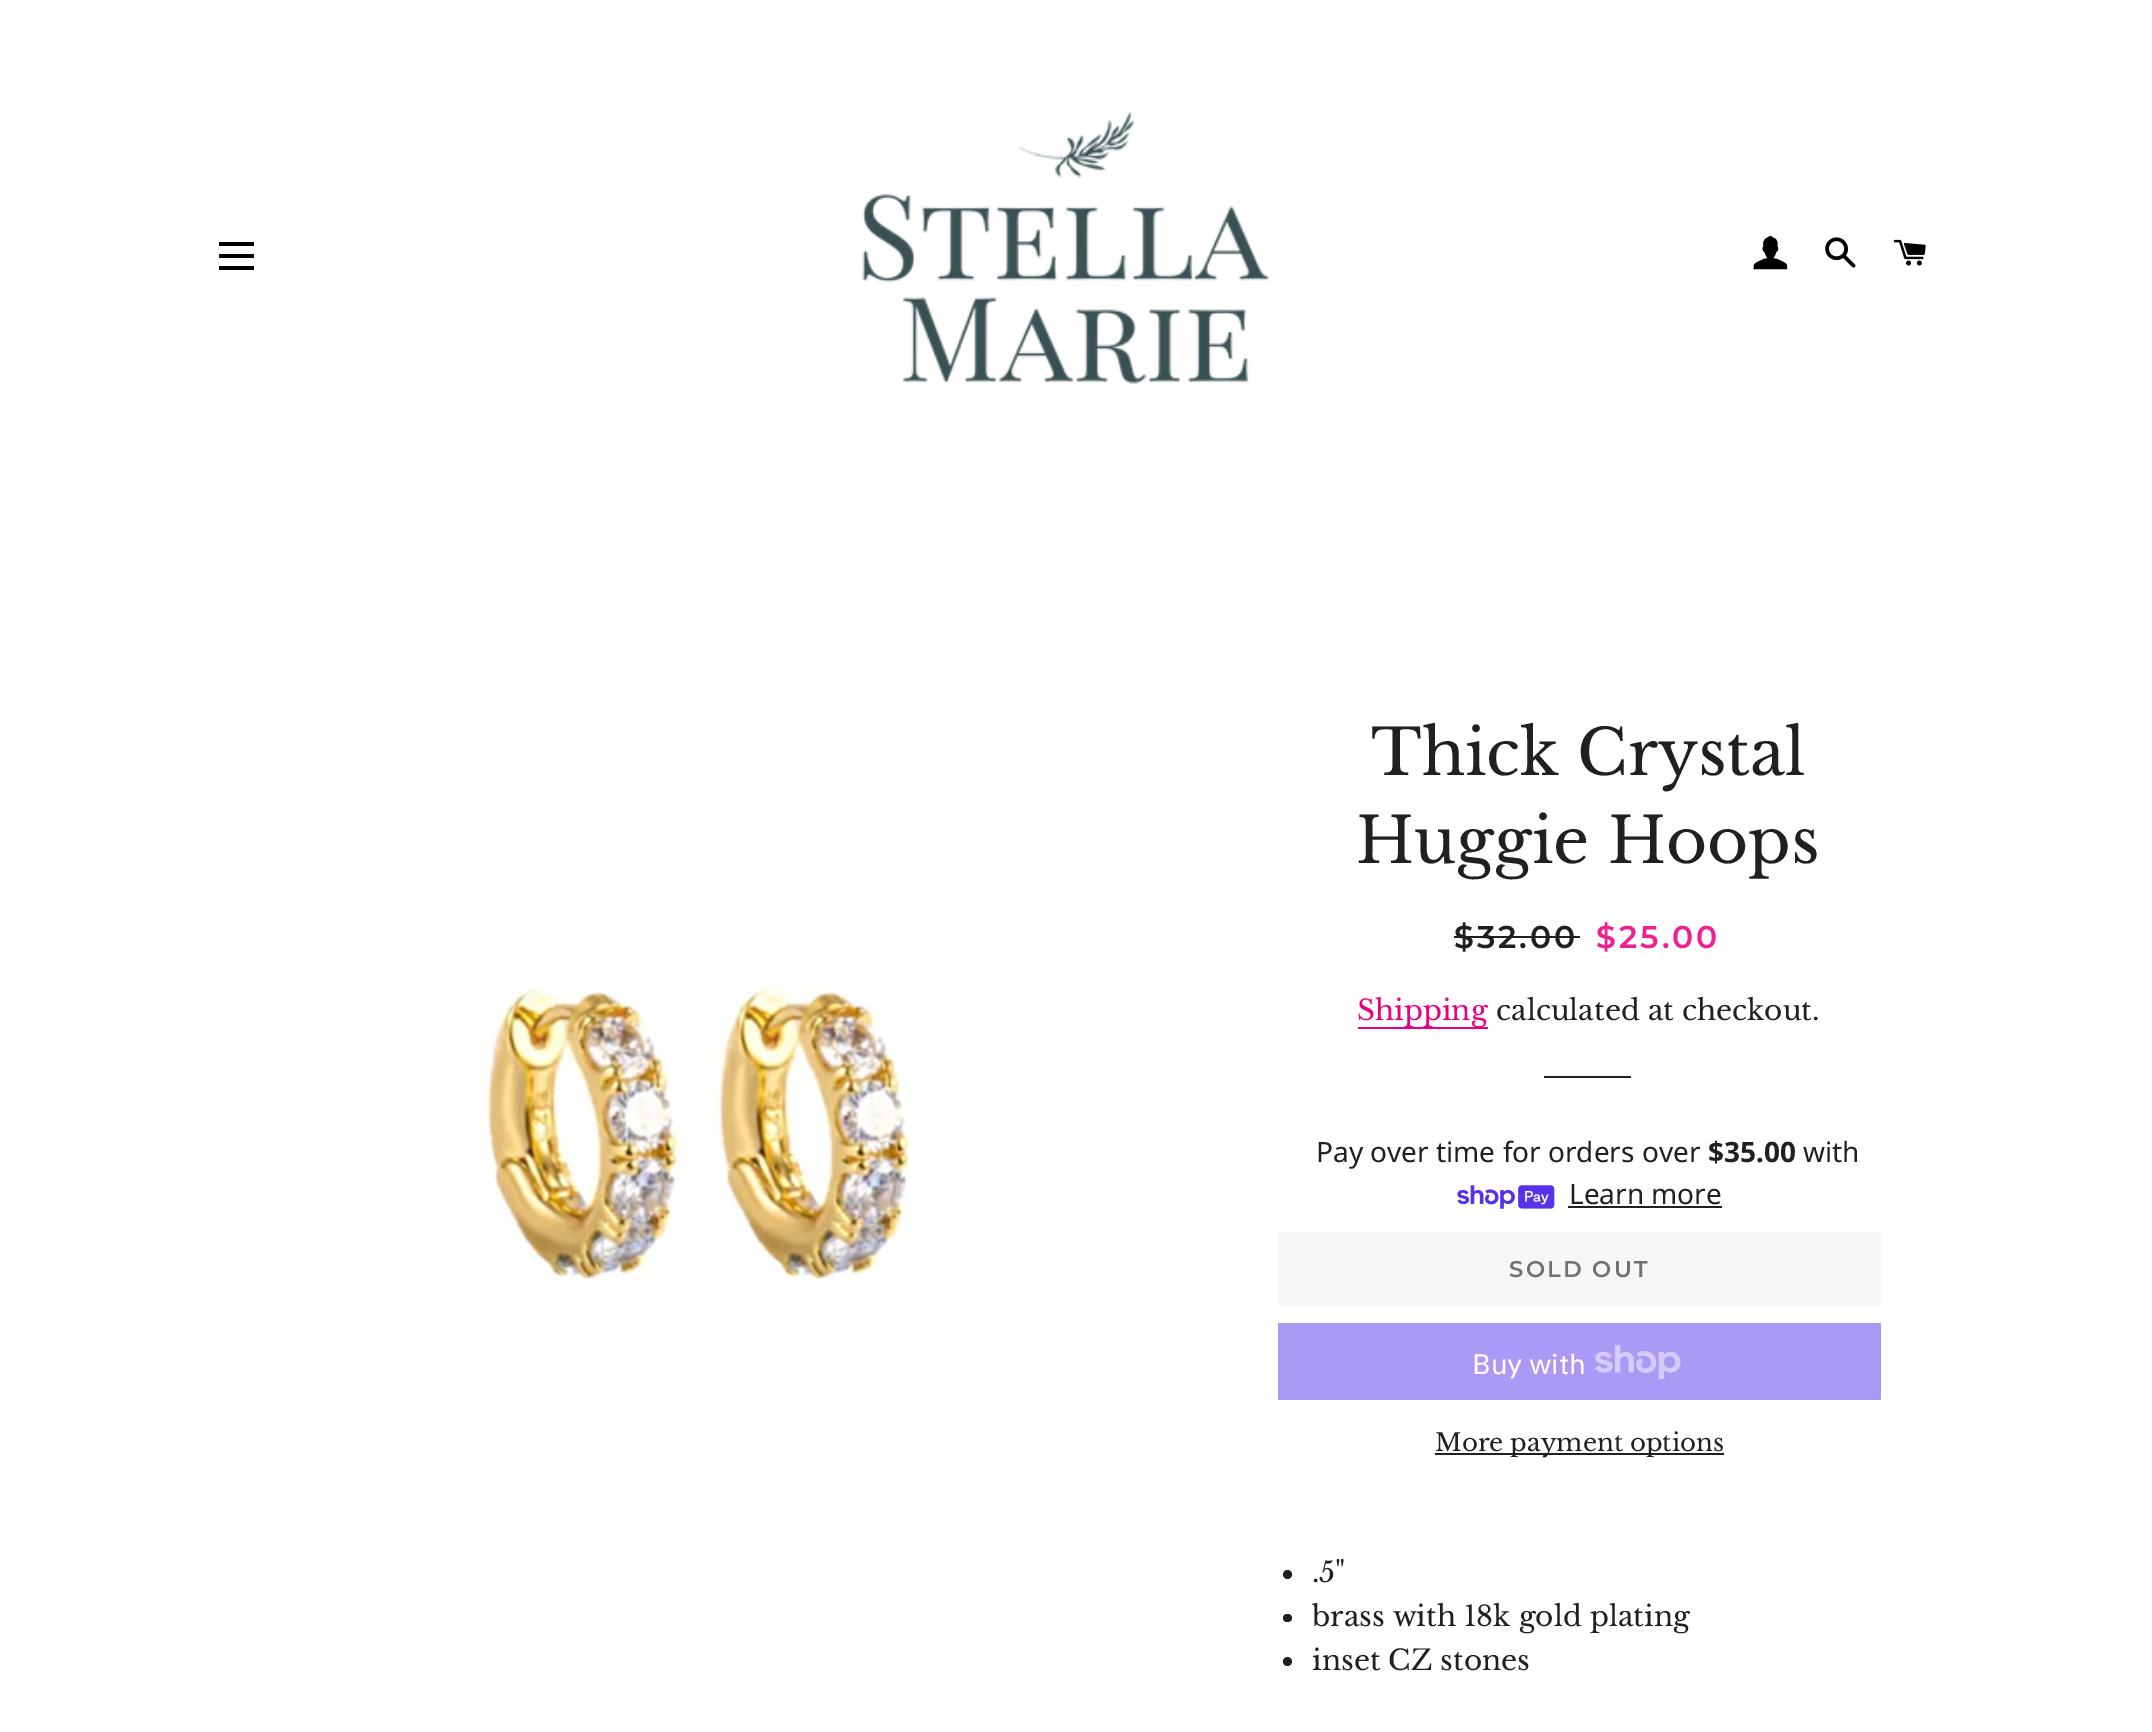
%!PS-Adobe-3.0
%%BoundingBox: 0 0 2152 1732
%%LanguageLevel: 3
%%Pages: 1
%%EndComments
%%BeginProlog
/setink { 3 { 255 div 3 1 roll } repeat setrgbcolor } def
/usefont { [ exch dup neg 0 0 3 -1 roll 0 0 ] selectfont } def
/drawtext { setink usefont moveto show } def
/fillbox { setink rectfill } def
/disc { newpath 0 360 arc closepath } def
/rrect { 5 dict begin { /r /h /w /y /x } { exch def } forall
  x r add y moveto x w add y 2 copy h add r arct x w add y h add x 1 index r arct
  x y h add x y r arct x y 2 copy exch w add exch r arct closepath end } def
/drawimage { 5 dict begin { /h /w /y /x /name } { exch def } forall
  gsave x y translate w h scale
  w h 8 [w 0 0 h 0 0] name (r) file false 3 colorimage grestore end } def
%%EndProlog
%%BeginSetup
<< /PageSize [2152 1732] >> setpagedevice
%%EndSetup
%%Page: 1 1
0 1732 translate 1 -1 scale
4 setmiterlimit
0 0 2152 1732 255 255 255 fillbox
219 242 35 4 0 0 0 fillbox
219 254 35 4 0 0 0 fillbox
219 266 35 4 0 0 0 fillbox
(assets/img1.rgb) 862 111 408 273 drawimage
(assets/img2.rgb) 1753 235 35 35 drawimage
(assets/img3.rgb) 1825 237 31 31 drawimage
(assets/img4.rgb) 1893 239 33 27 drawimage
(assets/img5.rgb) 210 648 989 988 drawimage
(Thick Crystal) 1371 775 /LibreBaskerville-Regular 63 31 32 33 drawtext
(Huggie Hoops) 1356 863 /LibreBaskerville-Regular 63 31 32 33 drawtext
/Montserrat-SemiBold 31.5 usefont
1454 948 moveto 3 0 ($32.00) ashow
1454 936 126 2 31 32 33 fillbox
238 33 145 setink
1596 948 moveto 3 0 ($25.00) ashow
1358 1027 130 2 233 0 127 fillbox
(Shipping) 1357 1020 /LibreBaskerville-Regular 28 233 0 127 drawtext
(calculated at checkout.) 1496 1020 /LibreBaskerville-Regular 28 31 32 33 drawtext
1544 1076 87 2 31 32 33 fillbox
(Pay over time for orders over) 1316 1162 /NotoSans-Regular 28 31 32 33 drawtext
($35.00) 1708 1162 /NotoSans-Bold 28 31 32 33 drawtext
(with) 1803 1162 /NotoSans-Regular 28 31 32 33 drawtext
(assets/img6.rgb) 1457 1185 98 24 drawimage
(Learn more) 1569 1204 /NotoSans-Regular 28 31 32 33 drawtext
1568 1206 154 2 31 32 33 fillbox
1278 1232 603 74 246 246 246 fillbox
/Montserrat-SemiBold 22.75 usefont
113 113 113 setink
1509 1277 moveto 2.25 0 (SOLD OUT) ashow
1278 1323 603 77 170 153 245 fillbox
(Buy with) 1472 1374 /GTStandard-Regular 28 255 255 255 drawtext
(assets/img7.rgb) 1595 1344 86 35 drawimage
1435 1453 289 2 31 32 33 fillbox
(More payment options) 1435 1451 /LibreBaskerville-Regular 24.5 31 32 33 drawtext
1287.5 1574.5 4.5 disc fill
(.5") 1312 1582 /LibreBaskerville-Regular 28 31 32 33 drawtext
1283 1614 9 8 4 rrect fill
(brass with 18k gold plating) 1312 1626 /LibreBaskerville-Regular 28 31 32 33 drawtext
1287.5 1661.5 4.5 disc fill
(inset CZ stones) 1312 1670 /LibreBaskerville-Regular 28 31 32 33 drawtext
showpage
%%EOF
